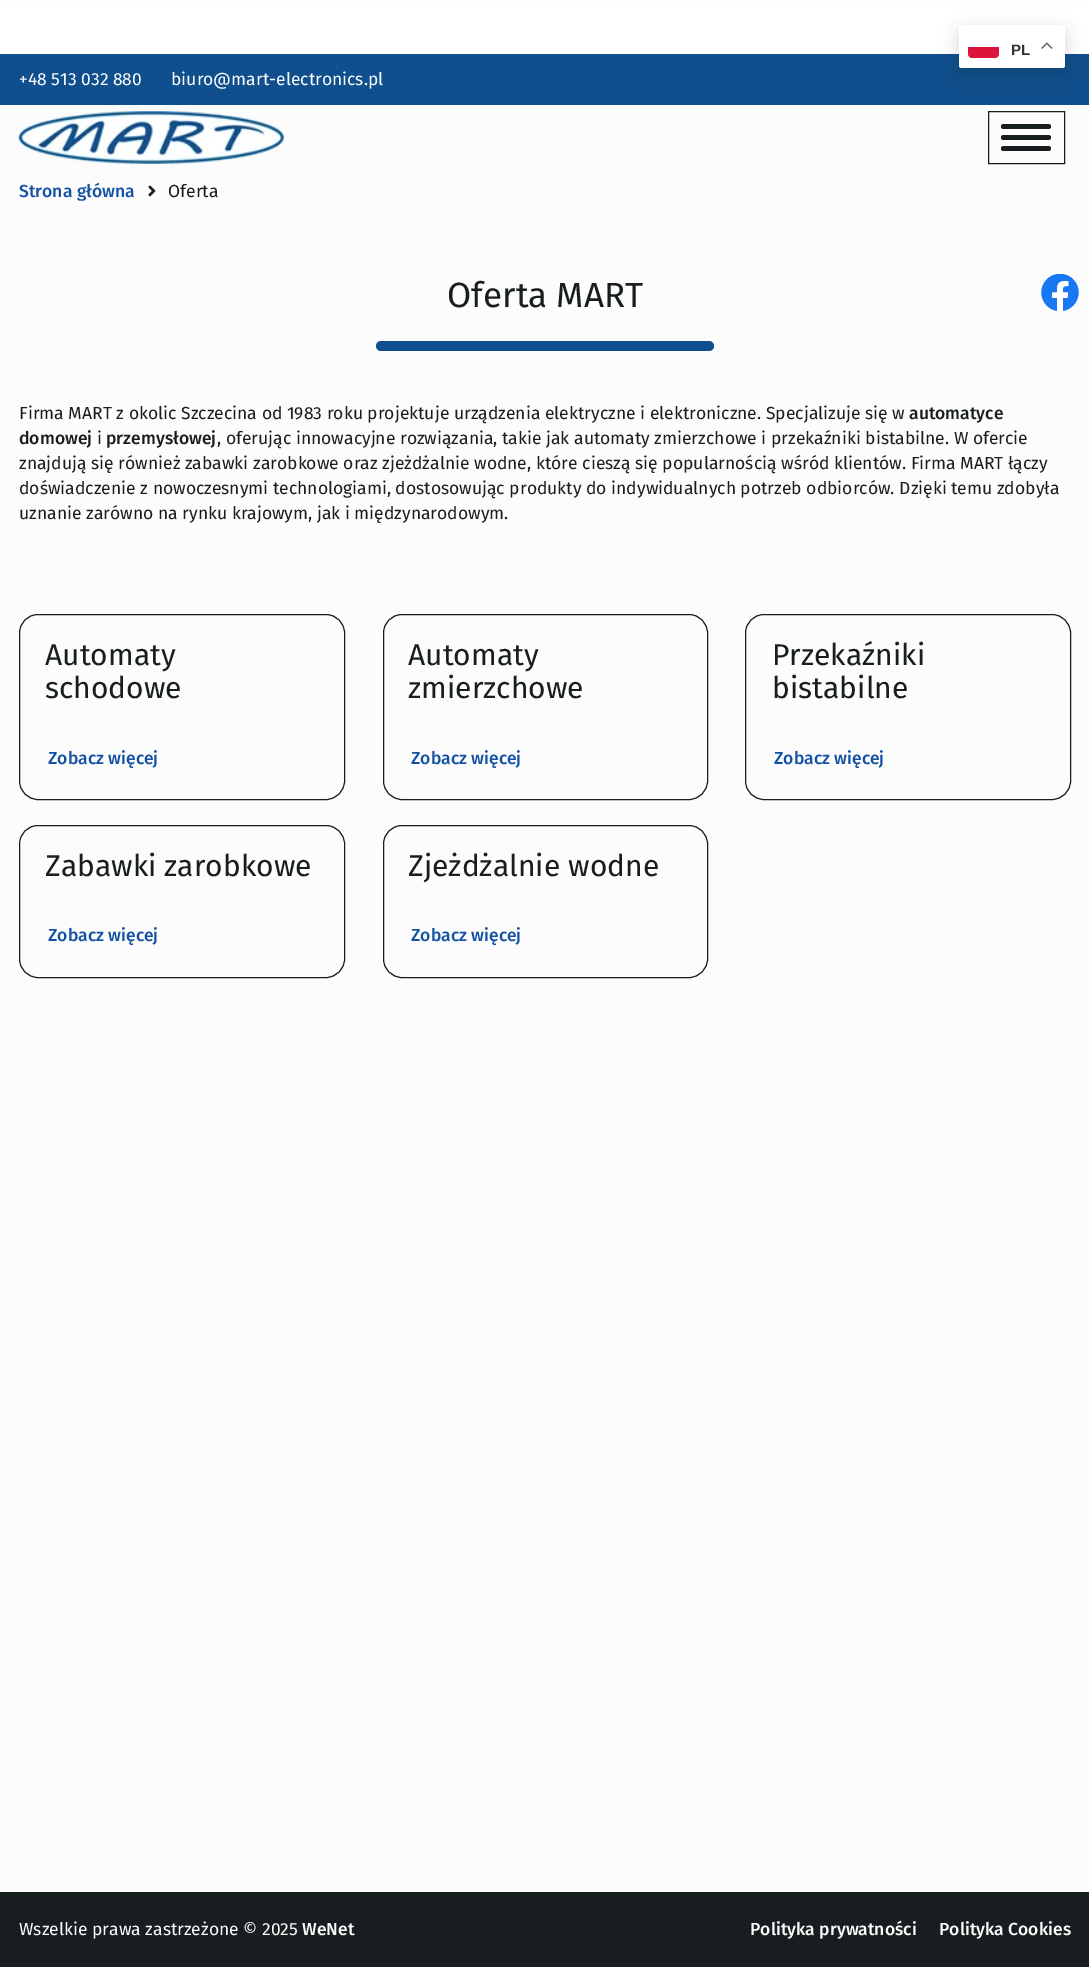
%!PS-Adobe-3.0
%%BoundingBox: 0 0 1089 1967
%%LanguageLevel: 3
%%Pages: 1
%%EndComments
%%BeginProlog
/setink { 3 { 255 div 3 1 roll } repeat setrgbcolor } def
/usefont { [ exch dup neg 0 0 3 -1 roll 0 0 ] selectfont } def
/drawtext { setink usefont moveto show } def
/fillbox { setink rectfill } def
/setalpha { dup .setfillconstantalpha .setstrokeconstantalpha } def
/rrect { 5 dict begin { /r /h /w /y /x } { exch def } forall
  x r add y moveto x w add y 2 copy h add r arct x w add y h add x 1 index r arct
  x y h add x y r arct x y 2 copy exch w add exch r arct closepath end } def
/softshadow { 12 dict begin { /a /b /q /h /w /y /x } { exch def } forall gsave /was 0 def
  9 -2 -9 { dup b mul 4 div /e exch def 1 sub .425 mul 2.718 exch exp 1 add a .99 .min exch div /now exch def
    1 1 now sub 1 was sub div sub setalpha /was now def
    w h .min e 2 mul add 0 gt { x e sub y e sub w e 2 mul add h e 2 mul add
      q e add b .6 mul add w h .min 2 div e add .min 0 .max rrect fill } if } for grestore end } def
/drawimage { 5 dict begin { /h /w /y /x /name } { exch def } forall
  gsave x y translate w h scale
  w h 8 [w 0 0 h 0 0] name (r) file false 3 colorimage grestore end } def
%%EndProlog
%%BeginSetup
<< /PageSize [1089 1967] /PageUsesTransparency true >> setpagedevice
%%EndSetup
%%Page: 1 1
0 .pushpdf14devicefilter
0 1967 translate 1 -1 scale
4 setmiterlimit
0 0 1089 1967 252 252 252 fillbox
0 1 1089 53 255 255 255 fillbox
0 54 1089 51 16 79 141 fillbox
0 0 0 setink
959 31 106 43 2.5 9.5 0.15 softshadow
255 255 255 setink
959 25 106 43 2.5 rrect fill
220 20 60 setink
968 47 moveto 999 47 lineto 999 54 lineto 999 56 997 58 995 58 curveto 972 58 lineto 970 58 968 56 968 54 curveto closepath fill
(PL) 1011 55 /LiberationSans-Bold 15 51 51 51 drawtext
(assets/img1.rgb) 1041 42 12 7 drawimage
(+48 513 032 880) 19 85 /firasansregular-Regular 17.5 252 252 252 drawtext
(biuro@mart-electronics.pl) 171 85 /firasansregular-Regular 17.5 252 252 252 drawtext
(assets/img2.rgb) 18 111 266 53 drawimage
24 29 31 setink
988.5 111.5 76 52 rectstroke
1001 124 50 5 2.5 rrect fill
1001 135 50 5 2.5 rrect fill
1001 146 50 5 2.5 rrect fill
(Strona główna) 19 197 /FiraSans-Medium 17.5 19 81 163 drawtext
(assets/img3.rgb) 148 185 8 12 drawimage
(Oferta) 168 197 /firasansregular-Regular 17.5 24 29 31 drawtext
(Oferta MART) 447 307 /firasansregular-Regular 35 24 29 31 drawtext
16 79 141 setink
376 341 338 10 5 rrect fill
(Firma MART z okolic Szczecina od 1983 roku projektuje urządzenia elektryczne i elektroniczne. Specjalizuje się w) 19 419 /firasansregular-Regular 17.5 24 29 31 drawtext
(automatyce) 909 419 /FiraSans-Medium 17.5 24 29 31 drawtext
(domowej) 19 444 /FiraSans-Medium 17.5 24 29 31 drawtext
(i) 97 444 /firasansregular-Regular 17.5 24 29 31 drawtext
(przemysłowej) 106 444 /FiraSans-Medium 17.5 24 29 31 drawtext
(, oferując innowacyjne rozwiązania, takie jak automaty zmierzchowe i przekaźniki bistabilne. W ofercie) 217 444 /firasansregular-Regular 17.5 24 29 31 drawtext
(znajdują się również zabawki zarobkowe oraz zjeżdżalnie wodne, które cieszą się popularnością wśród klientów. Firma MART łączy) 19 469 /firasansregular-Regular 17.5 24 29 31 drawtext
(doświadczenie z nowoczesnymi technologiami, dostosowując produkty do indywidualnych potrzeb odbiorców. Dzięki temu zdobyła) 19 494 /firasansregular-Regular 17.5 24 29 31 drawtext
(uznanie zarówno na rynku krajowym, jak i międzynarodowym.) 19 519 /firasansregular-Regular 17.5 24 29 31 drawtext
19.5 614.5 325 185 18.5 rrect stroke
(Automaty) 45 665 /firasansregular-Regular 30 24 29 31 drawtext
(schodowe) 45 698 /firasansregular-Regular 30 24 29 31 drawtext
(Zobacz więcej) 48 764 /FiraSans-Medium 17.5 19 81 163 drawtext
24 29 31 setink
383.5 614.5 324 185 18.5 rrect stroke
(Automaty) 408 665 /firasansregular-Regular 30 24 29 31 drawtext
(zmierzchowe) 408 698 /firasansregular-Regular 30 24 29 31 drawtext
(Zobacz więcej) 411 764 /FiraSans-Medium 17.5 19 81 163 drawtext
24 29 31 setink
745.5 614.5 325 185 18.5 rrect stroke
(Przekaźniki) 772 665 /firasansregular-Regular 30 24 29 31 drawtext
(bistabilne) 772 698 /firasansregular-Regular 30 24 29 31 drawtext
(Zobacz więcej) 774 764 /FiraSans-Medium 17.5 19 81 163 drawtext
24 29 31 setink
19.5 825.5 325 152 18.5 rrect stroke
(Zabawki zarobkowe) 45 876 /firasansregular-Regular 30 24 29 31 drawtext
(Zobacz więcej) 48 941 /FiraSans-Medium 17.5 19 81 163 drawtext
24 29 31 setink
383.5 825.5 324 152 18.5 rrect stroke
(Zjeżdżalnie wodne) 408 876 /firasansregular-Regular 30 24 29 31 drawtext
(Zobacz więcej) 411 941 /FiraSans-Medium 17.5 19 81 163 drawtext
(assets/img4.rgb) 1041 274 38 37 drawimage
0 1892 1089 75 24 29 31 fillbox
0 1891 1089 1 255 255 255 fillbox
(Wszelkie prawa zastrzeżone © 2025) 19 1935 /firasansregular-Regular 17.5 252 252 252 drawtext
(WeNet) 302 1935 /FiraSans-Medium 17.5 252 252 252 drawtext
(Polityka prywatności) 750 1935 /FiraSans-Medium 17.5 252 252 252 drawtext
(Polityka Cookies) 939 1935 /FiraSans-Medium 17.5 252 252 252 drawtext
.poppdf14devicefilter showpage
%%EOF
